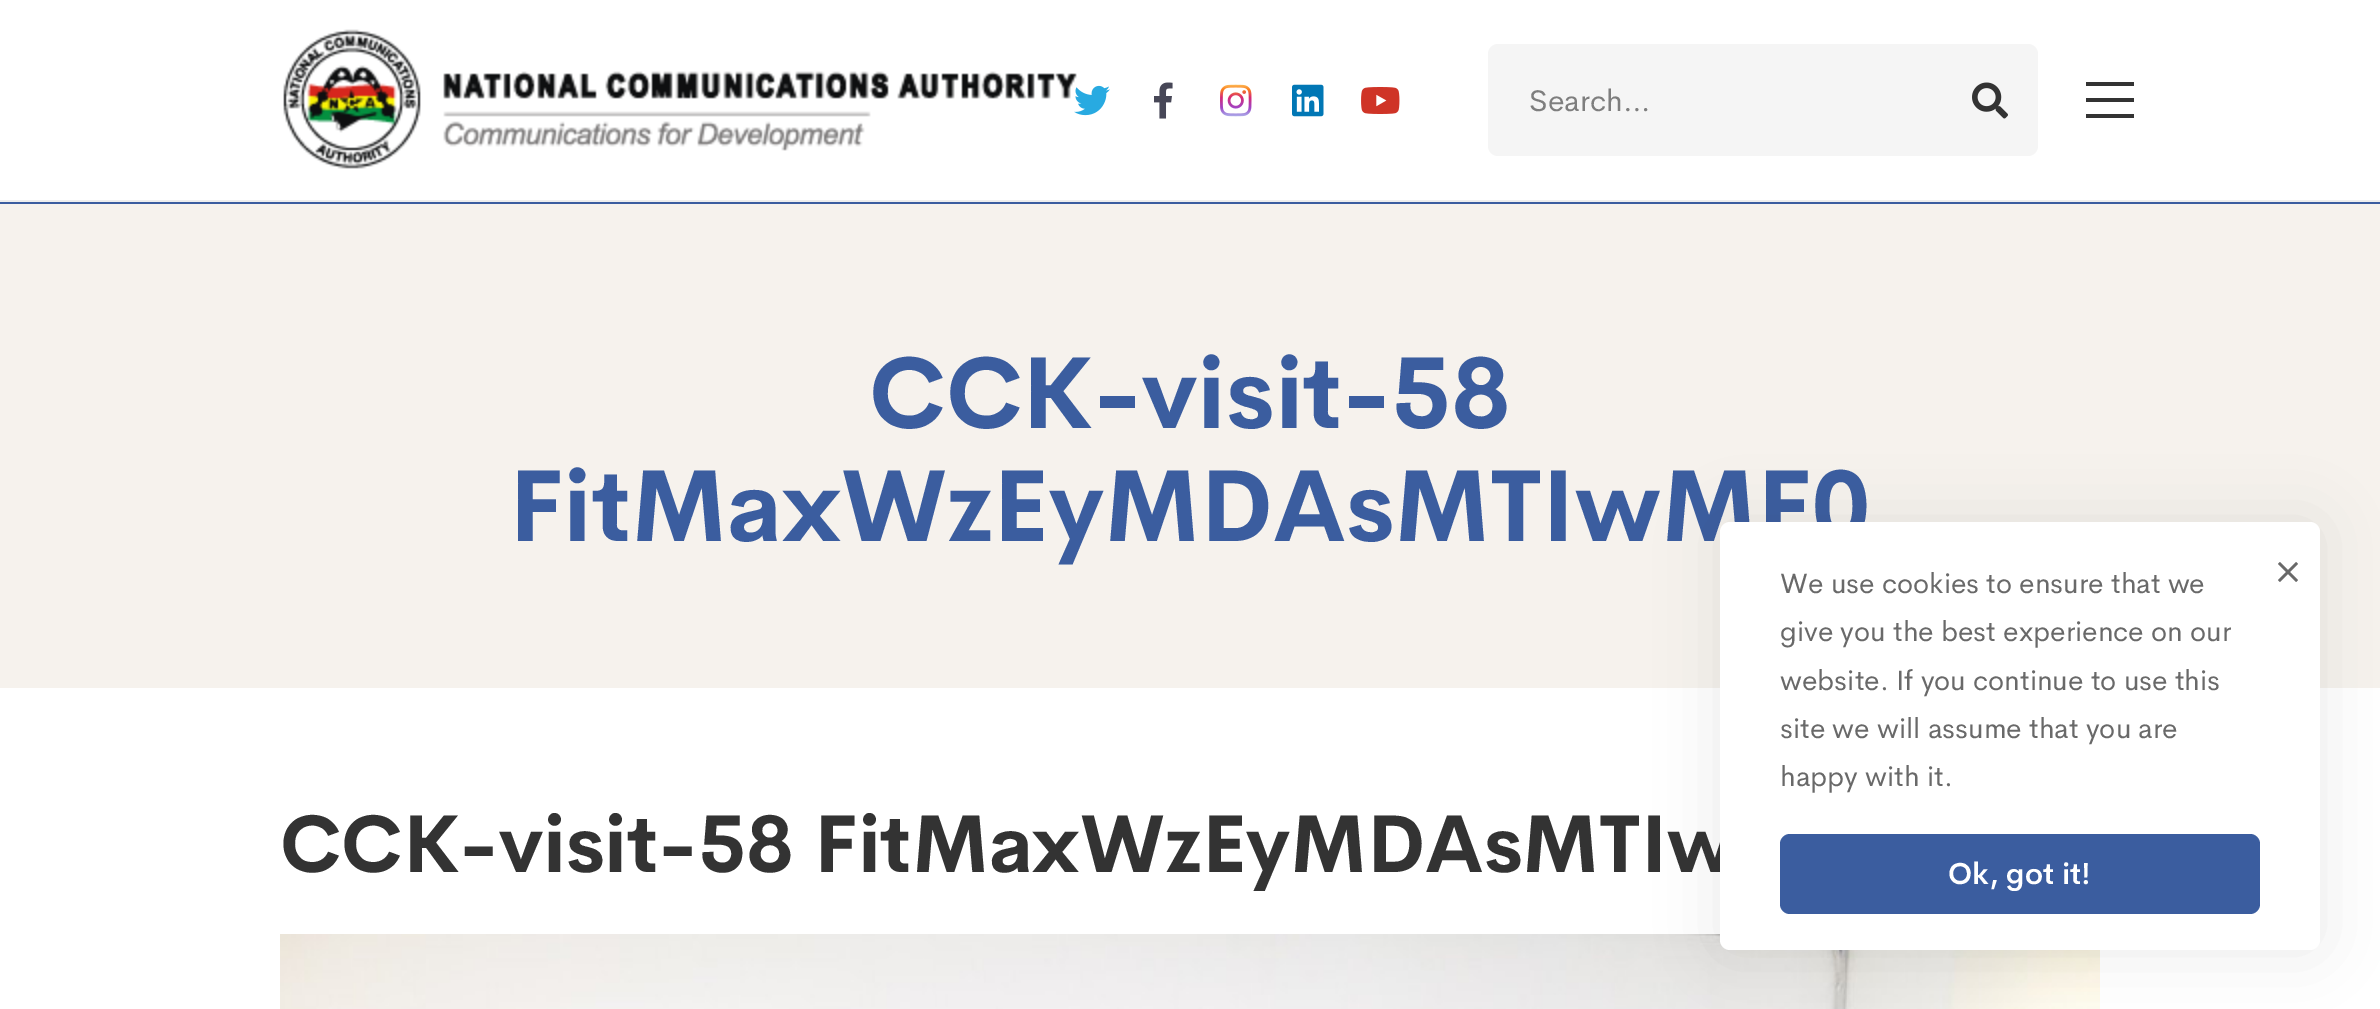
%!PS-Adobe-3.0
%%BoundingBox: 0 0 2380 1009
%%LanguageLevel: 3
%%Pages: 1
%%EndComments
%%BeginProlog
/setink { 3 { 255 div 3 1 roll } repeat setrgbcolor } def
/usefont { [ exch dup neg 0 0 3 -1 roll 0 0 ] selectfont } def
/drawtext { setink usefont moveto show } def
/fillbox { setink rectfill } def
/setalpha { dup .setfillconstantalpha .setstrokeconstantalpha } def
/rrect { 5 dict begin { /r /h /w /y /x } { exch def } forall
  x r add y moveto x w add y 2 copy h add r arct x w add y h add x 1 index r arct
  x y h add x y r arct x y 2 copy exch w add exch r arct closepath end } def
/softshadow { 12 dict begin { /a /b /q /h /w /y /x } { exch def } forall gsave /was 0 def
  9 -2 -9 { dup b mul 4 div /e exch def 1 sub .425 mul 2.718 exch exp 1 add a .99 .min exch div /now exch def
    1 1 now sub 1 was sub div sub setalpha /was now def
    w h .min e 2 mul add 0 gt { x e sub y e sub w e 2 mul add h e 2 mul add
      q e add b .6 mul add w h .min 2 div e add .min 0 .max rrect fill } if } for grestore end } def
/drawimage { 5 dict begin { /h /w /y /x /name } { exch def } forall
  gsave x y translate w h scale
  w h 8 [w 0 0 h 0 0] name (r) file false 3 colorimage grestore end } def
%%EndProlog
%%BeginSetup
<< /PageSize [2380 1009] /PageUsesTransparency true >> setpagedevice
%%EndSetup
%%Page: 1 1
0 .pushpdf14devicefilter
0 1009 translate 1 -1 scale
4 setmiterlimit
0 0 2380 1009 255 255 255 fillbox
0 200 2380 2 238 238 238 fillbox
(assets/img1.rgb) 283 29 794 140 drawimage
(assets/img2.rgb) 1074 85 36 31 drawimage
(assets/img3.rgb) 1154 82 19 37 drawimage
(assets/img4.rgb) 1220 84 32 33 drawimage
(assets/img5.rgb) 1292 84 32 33 drawimage
(assets/img6.rgb) 1361 87 39 27 drawimage
245 245 245 setink
1488 44 550 112 10 rrect fill
(Search…) 1529 111 /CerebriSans-Regular 30 126 126 126 drawtext
(assets/img7.rgb) 1972 82 36 37 drawimage
2086 98 48 4 51 51 51 fillbox
2086 82 48 4 51 51 51 fillbox
2086 114 48 4 51 51 51 fillbox
0 202 2380 2 59 93 159 fillbox
0 204 2380 484 246 242 237 fillbox
(CCK-visit-58) 869 428 /CerebriSans-Bold 100 59 93 159 drawtext
(FitMaxWzEyMDAsMTIwMF0) 509 541 /CerebriSans-Bold 100 59 93 159 drawtext
(CCK-visit-58 FitMaxWzEyMDAsMTIw) 280 872 /CerebriSans-Bold 80 51 51 51 drawtext
(assets/img8.rgb) 280 934 1820 75 drawimage
1720 522 600 428 10 30 0.1 softshadow
255 255 255 setink
1720 522 600 428 10 rrect fill
(We use cookies to ensure that we) 1780 593 /CerebriSans-Regular 28 105 105 105 drawtext
(give you the best experience on our) 1780 641 /CerebriSans-Regular 28 105 105 105 drawtext
(website. If you continue to use this) 1780 690 /CerebriSans-Regular 28 105 105 105 drawtext
(site we will assume that you are) 1780 738 /CerebriSans-Regular 28 105 105 105 drawtext
(happy with it.) 1780 786 /CerebriSans-Regular 28 105 105 105 drawtext
59 93 159 setink
1780 834 480 80 10 rrect fill
(Ok, got it!) 1948 884 /CerebriSans-SemiBold 30 255 255 255 drawtext
(assets/img9.rgb) 2278 562 20 20 drawimage
.poppdf14devicefilter showpage
%%EOF
